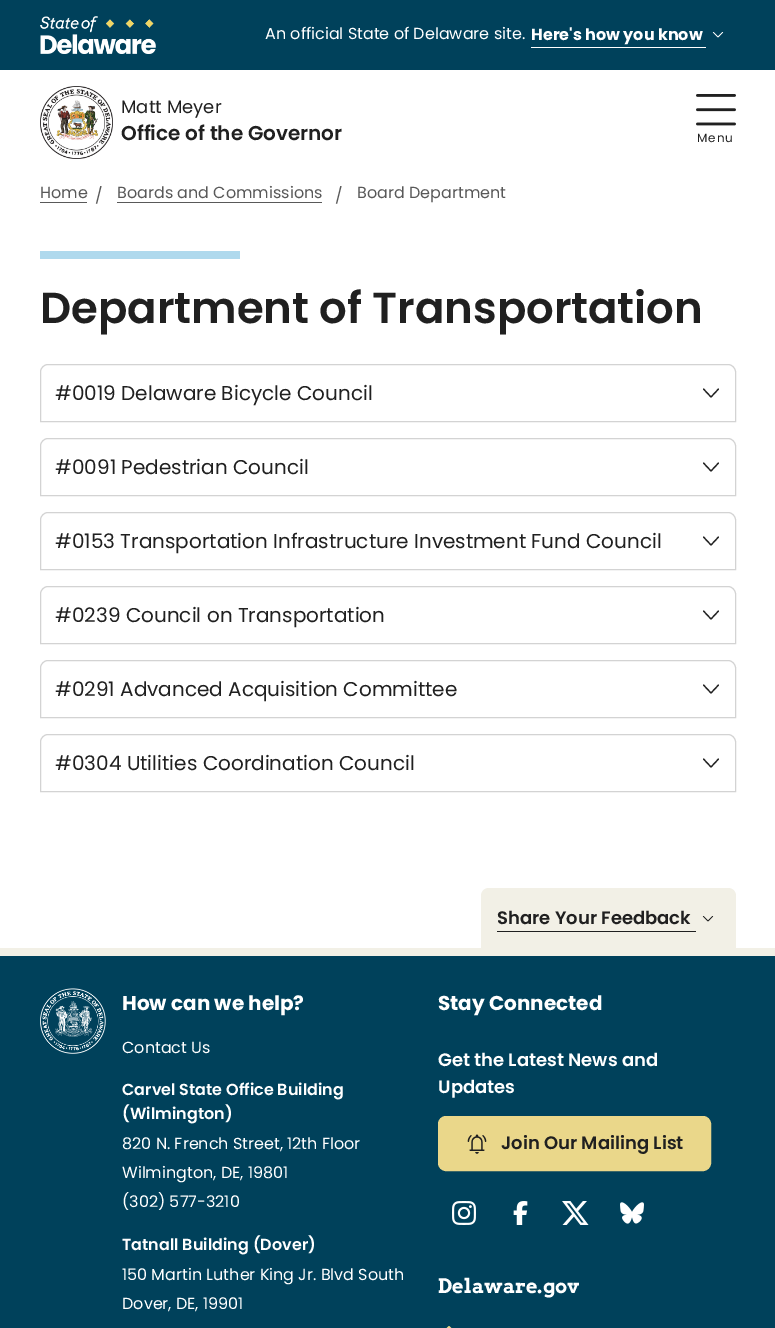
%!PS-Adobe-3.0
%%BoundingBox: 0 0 775 1328
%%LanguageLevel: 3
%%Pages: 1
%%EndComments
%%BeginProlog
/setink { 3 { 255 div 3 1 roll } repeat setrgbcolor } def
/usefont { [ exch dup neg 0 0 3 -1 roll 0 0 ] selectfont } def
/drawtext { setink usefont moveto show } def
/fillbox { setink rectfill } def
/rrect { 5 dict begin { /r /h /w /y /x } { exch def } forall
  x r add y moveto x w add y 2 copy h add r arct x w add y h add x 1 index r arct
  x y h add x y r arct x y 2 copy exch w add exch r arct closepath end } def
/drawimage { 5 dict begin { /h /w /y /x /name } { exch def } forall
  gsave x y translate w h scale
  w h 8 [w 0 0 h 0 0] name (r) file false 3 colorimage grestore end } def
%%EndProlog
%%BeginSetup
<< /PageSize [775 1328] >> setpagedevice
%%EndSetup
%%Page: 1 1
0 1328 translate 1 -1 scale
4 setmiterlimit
0 0 775 1328 255 255 255 fillbox
0 0 775 70 0 65 91 fillbox
(assets/img1.rgb) 40 16 116 38 drawimage
(An official State of Delaware site.) 265 39 /Poppins-Regular 16 255 255 255 drawtext
(Here's how you know) 531 40 /Poppins-Bold 16 255 255 255 drawtext
531 47 175 1 255 255 255 fillbox
(assets/img2.rgb) 712 32 12 6 drawimage
(assets/img3.rgb) 40 86 73 73 drawimage
(Matt Meyer) 121 113 /Poppins-Regular 18 32 32 32 drawtext
(Office of the Governor) 121 140 /Poppins-SemiBold 20 32 32 32 drawtext
(assets/img4.rgb) 696 94 40 32 drawimage
/Poppins-Regular 12 usefont
697 142 moveto 1 0 (Menu) ashow
(Home) 40 198 /Poppins-Regular 16 89 89 89 drawtext
40 202 47 1 89 89 89 fillbox
(/) 95 201 /Poppins-Regular 16 89 89 89 drawtext
(Boards and Commissions) 117 198 /Poppins-Regular 16 89 89 89 drawtext
117 202 205 1 89 89 89 fillbox
(/) 335 201 /Poppins-Regular 16 89 89 89 drawtext
(Board Department) 357 198 /Poppins-Regular 16 89 89 89 drawtext
40 251 200 8 175 217 237 fillbox
(Department of Transportation) 40 323 /Poppins-SemiBold 43.4 32 32 32 drawtext
211 211 211 setink
48 364.5 moveto 728 364.5 lineto 732 364.5 735.5 368 735.5 372 curveto 735.5 421.5 lineto 40.5 421.5 lineto 40.5 372 lineto 40.5 368 44 364.5 48 364.5 curveto closepath stroke
(#0019 Delaware Bicycle Council) 55 400 /Poppins-Regular 20 32 32 32 drawtext
1.2 setlinewidth
1 setlinecap
1 setlinejoin
703.5 389 moveto 711 397 lineto 718.5 389 lineto stroke
211 211 211 setink
1 setlinewidth
0 setlinecap
0 setlinejoin
48 438.5 moveto 728 438.5 lineto 732 438.5 735.5 442 735.5 446 curveto 735.5 495.5 lineto 40.5 495.5 lineto 40.5 446 lineto 40.5 442 44 438.5 48 438.5 curveto closepath stroke
(#0091 Pedestrian Council) 55 474 /Poppins-Regular 20 32 32 32 drawtext
1.2 setlinewidth
1 setlinecap
1 setlinejoin
703.5 463 moveto 711 471 lineto 718.5 463 lineto stroke
211 211 211 setink
1 setlinewidth
0 setlinecap
0 setlinejoin
48 512.5 moveto 728 512.5 lineto 732 512.5 735.5 516 735.5 520 curveto 735.5 569.5 lineto 40.5 569.5 lineto 40.5 520 lineto 40.5 516 44 512.5 48 512.5 curveto closepath stroke
(#0153 Transportation Infrastructure Investment Fund Council) 55 548 /Poppins-Regular 20 32 32 32 drawtext
1.2 setlinewidth
1 setlinecap
1 setlinejoin
703.5 537 moveto 711 545 lineto 718.5 537 lineto stroke
211 211 211 setink
1 setlinewidth
0 setlinecap
0 setlinejoin
48 586.5 moveto 728 586.5 lineto 732 586.5 735.5 590 735.5 594 curveto 735.5 643.5 lineto 40.5 643.5 lineto 40.5 594 lineto 40.5 590 44 586.5 48 586.5 curveto closepath stroke
(#0239 Council on Transportation) 55 622 /Poppins-Regular 20 32 32 32 drawtext
1.2 setlinewidth
1 setlinecap
1 setlinejoin
703.5 611 moveto 711 619 lineto 718.5 611 lineto stroke
211 211 211 setink
1 setlinewidth
0 setlinecap
0 setlinejoin
48 660.5 moveto 728 660.5 lineto 732 660.5 735.5 664 735.5 668 curveto 735.5 717.5 lineto 40.5 717.5 lineto 40.5 668 lineto 40.5 664 44 660.5 48 660.5 curveto closepath stroke
(#0291 Advanced Acquisition Committee) 55 696 /Poppins-Regular 20 32 32 32 drawtext
1.2 setlinewidth
1 setlinecap
1 setlinejoin
703.5 685 moveto 711 693 lineto 718.5 685 lineto stroke
211 211 211 setink
1 setlinewidth
0 setlinecap
0 setlinejoin
48 734.5 moveto 728 734.5 lineto 732 734.5 735.5 738 735.5 742 curveto 735.5 791.5 lineto 40.5 791.5 lineto 40.5 742 lineto 40.5 738 44 734.5 48 734.5 curveto closepath stroke
(#0304 Utilities Coordination Council) 55 770 /Poppins-Regular 20 32 32 32 drawtext
1.2 setlinewidth
1 setlinecap
1 setlinejoin
703.5 759 moveto 711 767 lineto 718.5 759 lineto stroke
0 948 775 8 242 240 230 fillbox
489 888 moveto 728 888 lineto 732.5 888 736 891.5 736 896 curveto 736 948 lineto 481 948 lineto 481 896 lineto 481 891.5 484.5 888 489 888 curveto closepath fill
(Share Your Feedback) 497 924 /Poppins-SemiBold 18 32 32 32 drawtext
497 931 199 1 32 32 32 fillbox
(assets/img5.rgb) 702 916 12 6 drawimage
0 956 775 372 0 65 91 fillbox
(assets/img6.rgb) 40 988 66 66 drawimage
(How can we help?) 122 1010 /Poppins-Bold 20 255 255 255 drawtext
(Contact Us) 122 1053 /Poppins-Regular 16 255 255 255 drawtext
(Carvel State Office Building) 122 1095 /Poppins-SemiBold 16 255 255 255 drawtext
(\(Wilmington\)) 122 1119 /Poppins-SemiBold 16 255 255 255 drawtext
(820 N. French Street, 12th Floor) 122 1149 /Poppins-Regular 16 255 255 255 drawtext
(Wilmington, DE, 19801) 122 1178 /Poppins-Regular 16 255 255 255 drawtext
(\(302\) 577-3210) 122 1207 /Poppins-Regular 16 255 255 255 drawtext
(Tatnall Building \(Dover\)) 122 1250 /Poppins-SemiBold 16 255 255 255 drawtext
(150 Martin Luther King Jr. Blvd South) 122 1280 /Poppins-Regular 16 255 255 255 drawtext
(Dover, DE, 19901) 122 1309 /Poppins-Regular 16 255 255 255 drawtext
(Stay Connected) 438 1010 /Poppins-Bold 20 255 255 255 drawtext
(Get the Latest News and) 438 1066 /Poppins-SemiBold 18 255 255 255 drawtext
(Updates) 438 1093 /Poppins-SemiBold 18 255 255 255 drawtext
234 215 138 setink
439.5 1117.5 270 52 6.5 rrect gsave fill grestore
3 setlinewidth
0 setlinecap
0 setlinejoin
stroke
(assets/img7.rgb) 467 1134 20 20 drawimage
(Join Our Mailing List) 501 1149 /Poppins-SemiBold 18 32 32 32 drawtext
(assets/img8.rgb) 452 1201 24 24 drawimage
(assets/img9.rgb) 513 1201 15 24 drawimage
(assets/img10.rgb) 562 1201 27 24 drawimage
(assets/img11.rgb) 620 1202 24 22 drawimage
(Delaware.gov) 438 1293 /Arvo-Bold 20 255 255 255 drawtext
(assets/img12.rgb) 446 1326 6 2 drawimage
showpage
%%EOF
